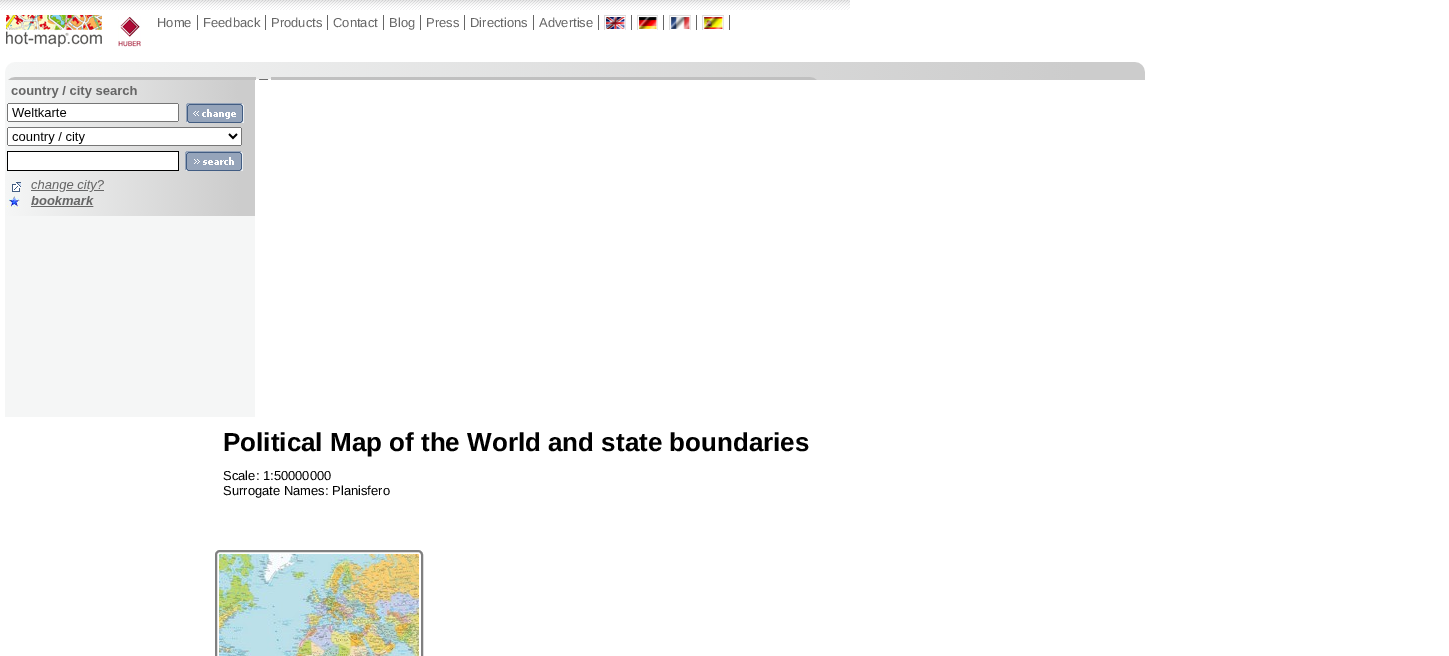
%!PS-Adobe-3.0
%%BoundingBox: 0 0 1449 656
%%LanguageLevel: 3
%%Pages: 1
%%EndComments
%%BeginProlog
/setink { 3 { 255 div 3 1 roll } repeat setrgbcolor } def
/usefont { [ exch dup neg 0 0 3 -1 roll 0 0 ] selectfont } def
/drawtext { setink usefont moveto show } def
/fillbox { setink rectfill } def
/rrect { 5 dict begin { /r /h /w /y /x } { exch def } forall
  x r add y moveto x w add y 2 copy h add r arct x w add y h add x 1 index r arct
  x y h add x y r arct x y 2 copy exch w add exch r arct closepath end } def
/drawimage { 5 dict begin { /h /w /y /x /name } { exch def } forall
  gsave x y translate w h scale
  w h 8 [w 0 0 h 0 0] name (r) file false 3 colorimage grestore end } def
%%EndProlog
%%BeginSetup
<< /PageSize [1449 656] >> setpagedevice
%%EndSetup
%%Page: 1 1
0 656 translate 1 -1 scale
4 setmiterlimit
0 0 1449 656 255 255 255 fillbox
(assets/img1.rgb) 0 0 850 10 drawimage
(assets/img2.rgb) 6 15 96 32 drawimage
(assets/img3.rgb) 118 16 23 31 drawimage
197 15 1 15 102 102 102 fillbox
(Home) 157 27 /LiberationSans-Regular 13 102 102 102 drawtext
265 15 1 15 102 102 102 fillbox
(Feedback) 203 27 /LiberationSans-Regular 13 102 102 102 drawtext
327 15 1 15 102 102 102 fillbox
(Products) 271 27 /LiberationSans-Regular 13 102 102 102 drawtext
383 15 1 15 102 102 102 fillbox
(Contact) 333 27 /LiberationSans-Regular 13 102 102 102 drawtext
420 15 1 15 102 102 102 fillbox
(Blog) 389 27 /LiberationSans-Regular 13 102 102 102 drawtext
464 15 1 15 102 102 102 fillbox
(Press) 426 27 /LiberationSans-Regular 13 102 102 102 drawtext
533 15 1 15 102 102 102 fillbox
(Directions) 470 27 /LiberationSans-Regular 13 102 102 102 drawtext
598 15 1 15 102 102 102 fillbox
(Advertise) 539 27 /LiberationSans-Regular 13 102 102 102 drawtext
631 15 1 15 102 102 102 fillbox
(assets/img4.rgb) 604 15 22 15 drawimage
663 15 1 15 102 102 102 fillbox
(assets/img5.rgb) 637 15 21 15 drawimage
696 15 1 15 102 102 102 fillbox
(assets/img6.rgb) 669 15 22 15 drawimage
729 15 1 15 102 102 102 fillbox
(assets/img7.rgb) 702 15 22 15 drawimage
(assets/img8.rgb) 5 62 1140 355 drawimage
(Political Map of the World and state boundaries) 223 451 /LiberationSans-Bold 26 0 0 0 drawtext
(Scale: 1:50000000) 223 480 /LiberationSans-Regular 13 0 0 0 drawtext
(Surrogate Names: Planisfero) 223 495 /LiberationSans-Regular 13 0 0 0 drawtext
128 128 128 setink
2 setlinewidth
216 551 206 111 4 rrect stroke
(assets/img9.rgb) 219 554 200 102 drawimage
showpage
%%EOF
